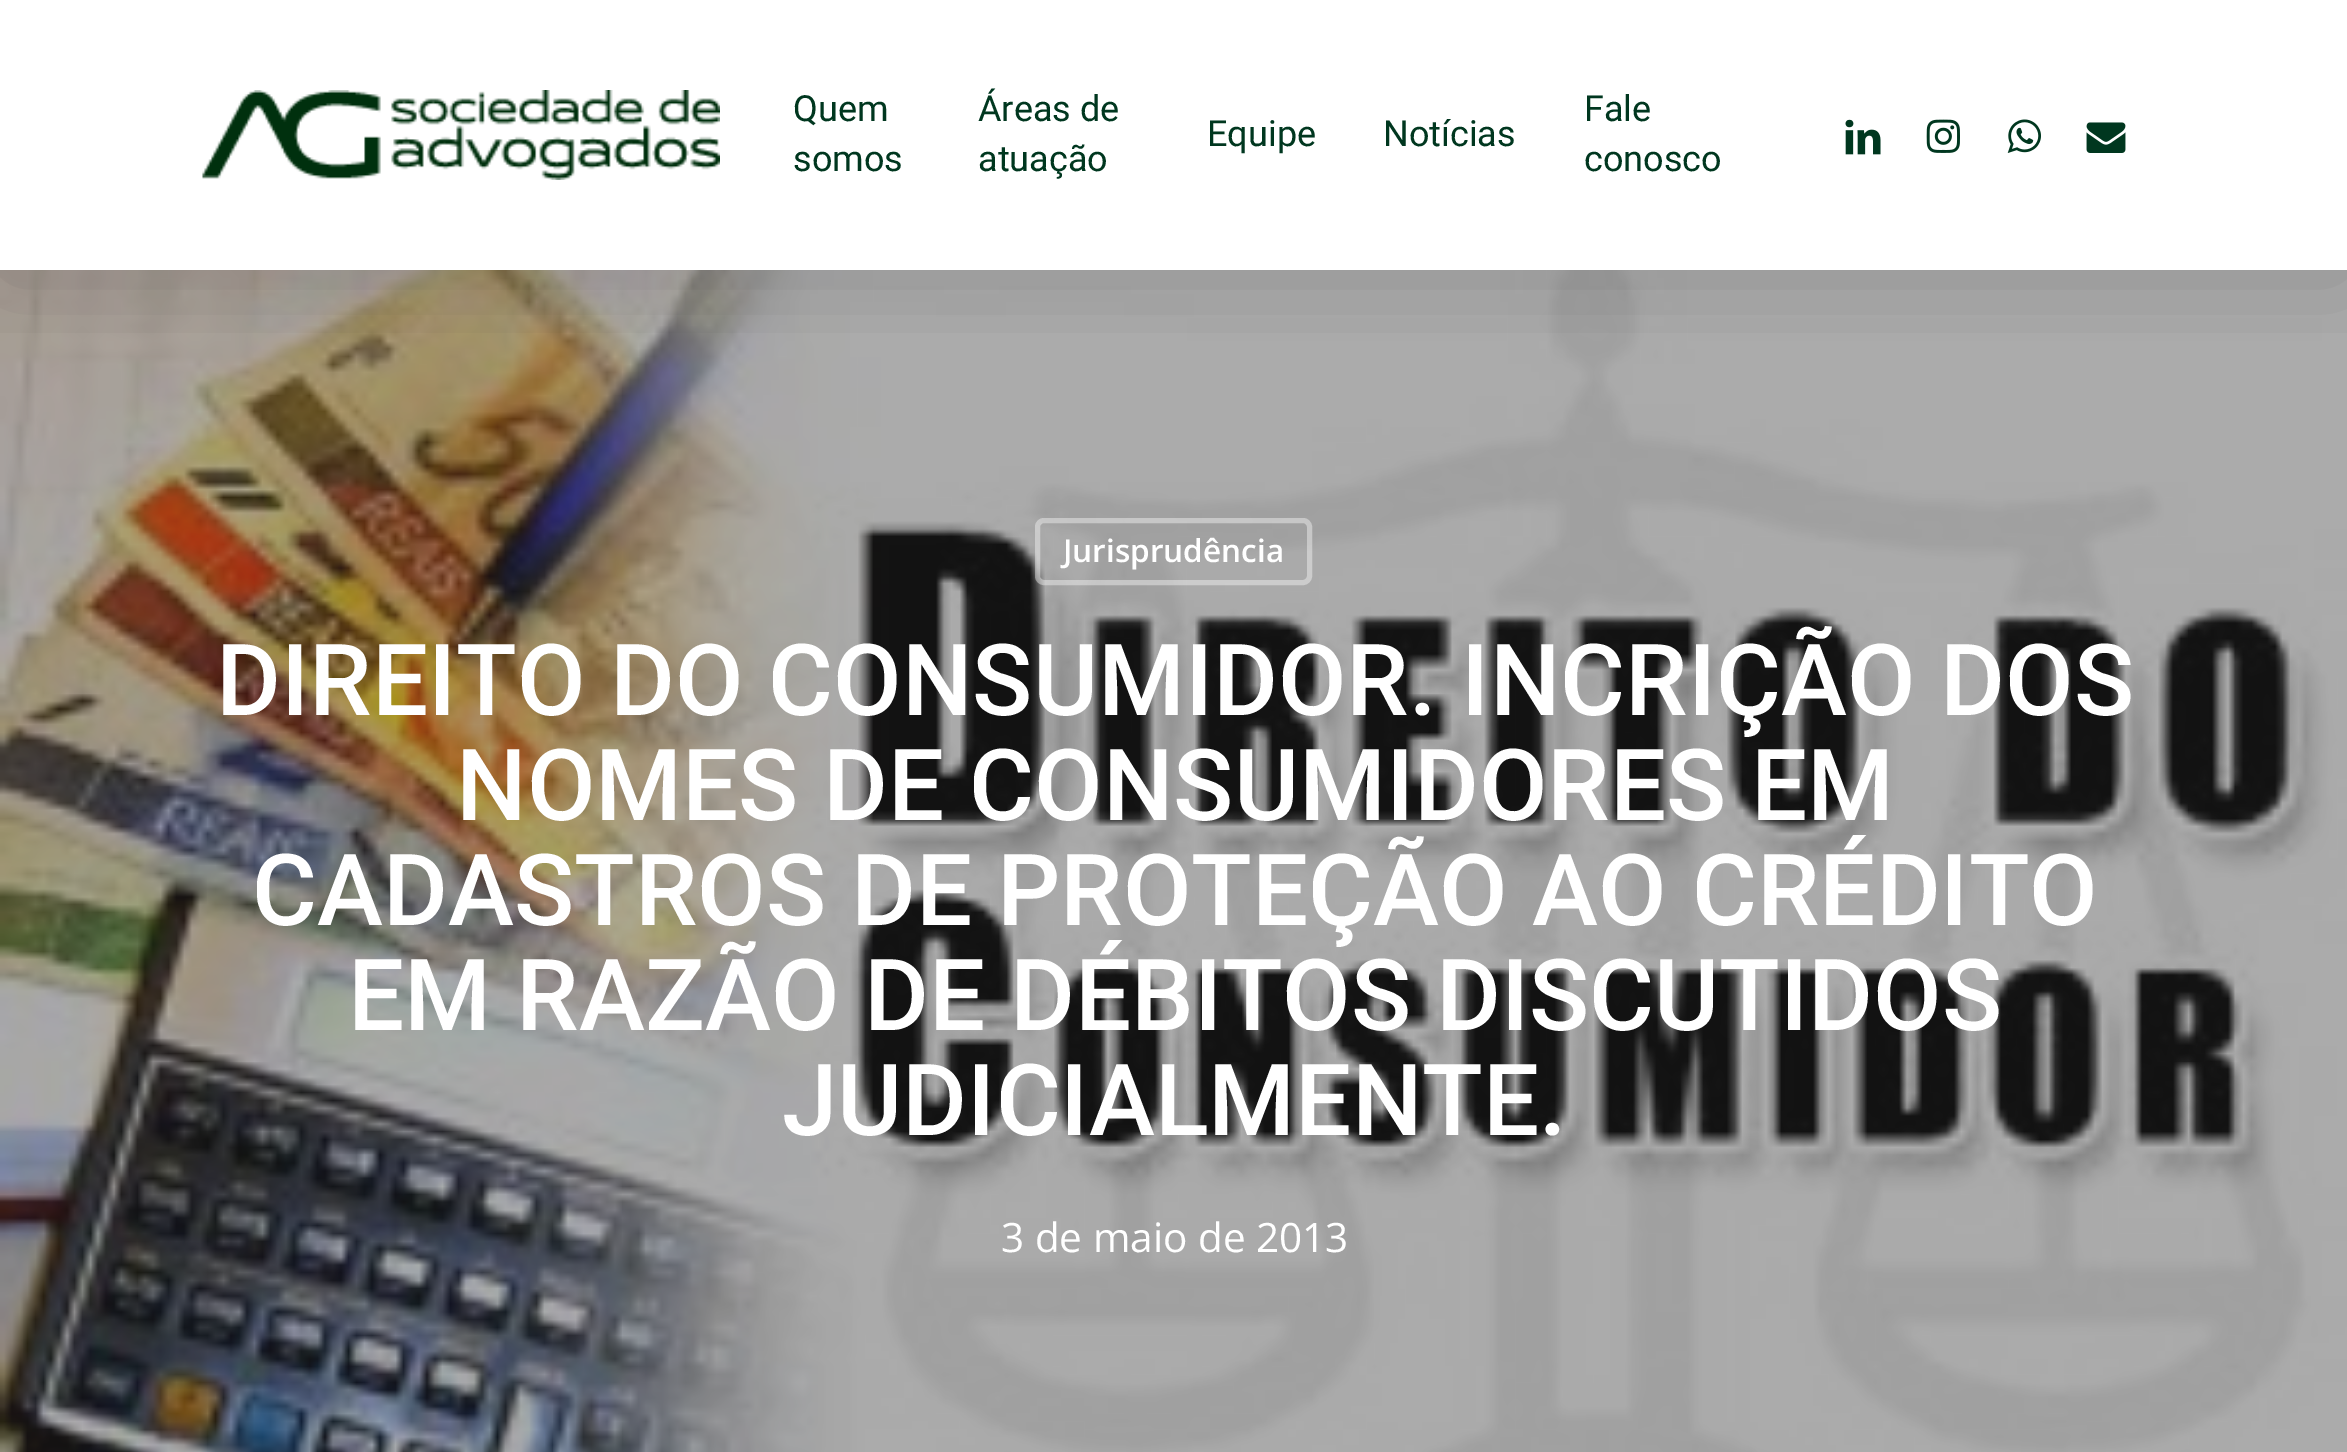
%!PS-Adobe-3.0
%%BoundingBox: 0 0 2347 1452
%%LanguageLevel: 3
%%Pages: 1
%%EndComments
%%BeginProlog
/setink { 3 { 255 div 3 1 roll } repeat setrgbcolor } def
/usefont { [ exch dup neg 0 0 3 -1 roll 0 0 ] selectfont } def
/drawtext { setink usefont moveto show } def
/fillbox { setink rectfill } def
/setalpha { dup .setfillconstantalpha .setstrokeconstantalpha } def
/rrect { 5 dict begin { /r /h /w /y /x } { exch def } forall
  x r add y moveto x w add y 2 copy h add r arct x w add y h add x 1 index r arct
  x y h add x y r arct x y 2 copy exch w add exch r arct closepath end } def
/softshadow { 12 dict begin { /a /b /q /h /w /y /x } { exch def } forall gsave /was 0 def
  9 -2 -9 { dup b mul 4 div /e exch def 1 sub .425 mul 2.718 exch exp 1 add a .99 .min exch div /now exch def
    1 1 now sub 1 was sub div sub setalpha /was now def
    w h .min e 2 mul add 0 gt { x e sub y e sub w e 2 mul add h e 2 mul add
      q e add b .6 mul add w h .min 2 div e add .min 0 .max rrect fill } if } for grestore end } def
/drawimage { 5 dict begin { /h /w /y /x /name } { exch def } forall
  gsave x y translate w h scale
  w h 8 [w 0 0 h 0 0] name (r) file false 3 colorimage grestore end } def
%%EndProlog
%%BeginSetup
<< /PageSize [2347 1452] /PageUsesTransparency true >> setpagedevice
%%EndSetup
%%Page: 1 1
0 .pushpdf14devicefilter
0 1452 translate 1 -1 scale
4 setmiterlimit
0 0 2347 1452 255 255 255 fillbox
(assets/img6.rgb) 0 270 2347 1182 drawimage
gsave
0 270 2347 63 rectclip
0 0 0 setink
0 7 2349 270 0 50.5 0.15 softshadow
grestore
(assets/img1.rgb) 202 90 518 90 drawimage
(Quem) 793 121 /Roboto-Regular 36 0 55 31 drawtext
(somos) 793 171 /Roboto-Regular 36 0 55 31 drawtext
(Áreas de) 978 121 /Roboto-Regular 36 0 55 31 drawtext
(atuação) 978 171 /Roboto-Regular 36 0 55 31 drawtext
(Equipe) 1207 146 /Roboto-Regular 36 0 55 31 drawtext
(Notícias) 1383 146 /Roboto-Regular 36 0 55 31 drawtext
(Fale) 1584 121 /Roboto-Regular 36 0 55 31 drawtext
(conosco) 1584 171 /Roboto-Regular 36 0 55 31 drawtext
(assets/img2.rgb) 1845 119 36 36 drawimage
(assets/img3.rgb) 1926 119 34 34 drawimage
(assets/img4.rgb) 2007 119 34 34 drawimage
(assets/img5.rgb) 2086 122 40 31 drawimage
0.4 setalpha
255 255 255 setink
5 setlinewidth
1037.5 520.5 272 62 6.5 rrect stroke
1 setalpha
(Jurisprudência) 1063 562 /OpenSans-SemiBold 31.5 255 255 255 drawtext
(DIREITO DO CONSUMIDOR. INCRIÇÃO DOS) 216 715 /Roboto-Medium 99.5 255 255 255 drawtext
(NOMES DE CONSUMIDORES EM) 456 820 /Roboto-Medium 99.5 255 255 255 drawtext
(CADASTROS DE PROTEÇÃO AO CRÉDITO) 252 925 /Roboto-Medium 99.5 255 255 255 drawtext
(EM RAZÃO DE DÉBITOS DISCUTIDOS) 348 1030 /Roboto-Medium 99.5 255 255 255 drawtext
(JUDICIALMENTE.) 782 1135 /Roboto-Medium 99.5 255 255 255 drawtext
(3 de maio de 2013) 1001 1252 /OpenSans-Regular 40.5 255 255 255 drawtext
.poppdf14devicefilter showpage
%%EOF
